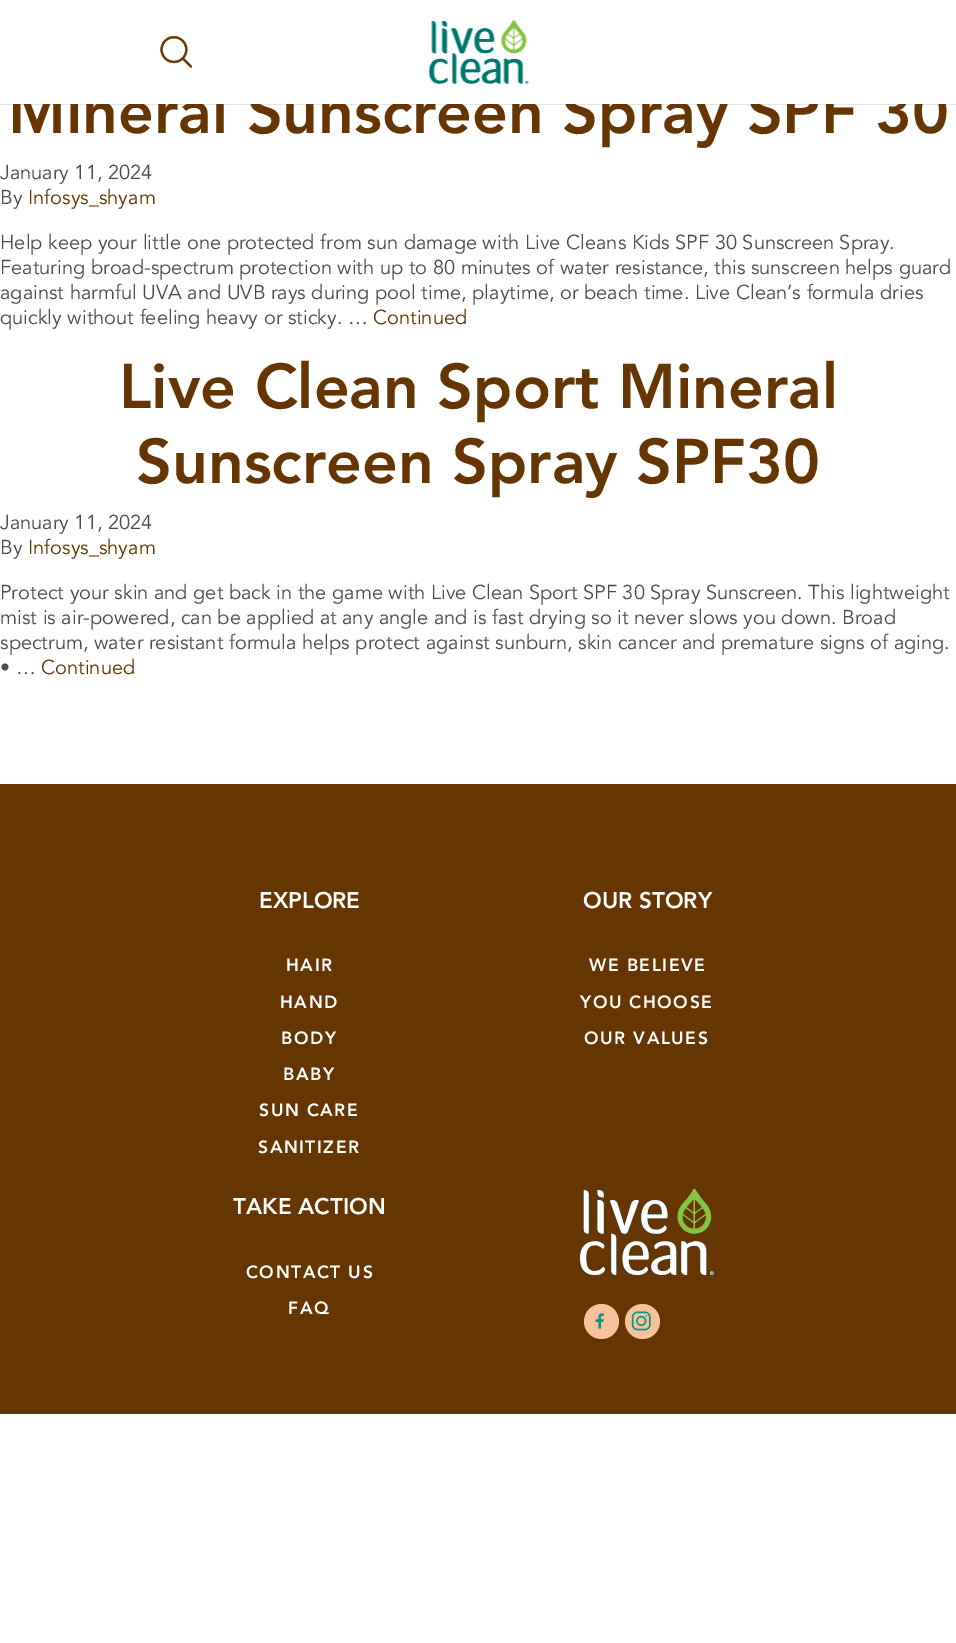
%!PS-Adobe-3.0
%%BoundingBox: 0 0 956 1643
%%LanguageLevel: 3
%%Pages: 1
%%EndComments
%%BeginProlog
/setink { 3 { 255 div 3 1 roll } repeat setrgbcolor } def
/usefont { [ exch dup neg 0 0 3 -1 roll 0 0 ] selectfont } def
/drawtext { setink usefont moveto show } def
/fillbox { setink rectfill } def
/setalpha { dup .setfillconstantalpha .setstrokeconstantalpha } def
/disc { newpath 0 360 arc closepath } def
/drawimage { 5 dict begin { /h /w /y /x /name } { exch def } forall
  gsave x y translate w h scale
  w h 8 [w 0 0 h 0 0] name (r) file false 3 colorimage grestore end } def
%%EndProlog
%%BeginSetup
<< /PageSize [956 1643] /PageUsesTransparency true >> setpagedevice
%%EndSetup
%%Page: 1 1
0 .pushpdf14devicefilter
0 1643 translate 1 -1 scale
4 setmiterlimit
0 0 956 1643 255 255 255 fillbox
0.1 setalpha
0 104 956 1 0 0 0 fillbox
1 setalpha
(Mineral Sunscreen Spray SPF 30) 8 133 /Avenir-Black 62.5 101 53 2 drawtext
12 85 934 19 255 255 255 fillbox
(assets/img1.rgb) 160 36 33 32 drawimage
(assets/img2.rgb) 428 20 101 64 drawimage
(January 11, 2024) 0 179 /Avenir-Regular 20 76 76 76 drawtext
(By) 0 204 /Avenir-Regular 20 76 76 76 drawtext
(Infosys_shyam) 28 204 /Avenir-Regular 20 101 53 2 drawtext
(Help keep your little one protected from sun damage with Live Cleans Kids SPF 30 Sunscreen Spray.) 0 249 /Avenir-Regular 20 76 76 76 drawtext
(Featuring broad-spectrum protection with up to 80 minutes of water resistance, this sunscreen helps guard) 0 274 /Avenir-Regular 20 76 76 76 drawtext
(against harmful UVA and UVB rays during pool time, playtime, or beach time. Live Clean’s formula dries) 0 299 /Avenir-Regular 20 76 76 76 drawtext
(quickly without feeling heavy or sticky. …) 0 324 /Avenir-Regular 20 76 76 76 drawtext
(Continued) 373 324 /Avenir-Regular 20 101 53 2 drawtext
(Live Clean Sport Mineral) 119 408 /Avenir-Black 62.5 101 53 2 drawtext
(Sunscreen Spray SPF30) 136 483 /Avenir-Black 62.5 101 53 2 drawtext
(January 11, 2024) 0 529 /Avenir-Regular 20 76 76 76 drawtext
(By) 0 554 /Avenir-Regular 20 76 76 76 drawtext
(Infosys_shyam) 28 554 /Avenir-Regular 20 101 53 2 drawtext
(Protect your skin and get back in the game with Live Clean Sport SPF 30 Spray Sunscreen. This lightweight) 0 599 /Avenir-Regular 20 76 76 76 drawtext
(mist is air-powered, can be applied at any angle and is fast drying so it never slows you down. Broad) 0 624 /Avenir-Regular 20 76 76 76 drawtext
(spectrum, water resistant formula helps protect against sunburn, skin cancer and premature signs of aging.) 0 649 /Avenir-Regular 20 76 76 76 drawtext
(• …) 0 674 /Avenir-Regular 20 76 76 76 drawtext
(Continued) 41 674 /Avenir-Regular 20 101 53 2 drawtext
0 784 956 630 101 53 2 fillbox
(EXPLORE) 259 908 /Avenir-Black 22.5 255 255 255 drawtext
/Avenir-Black 17.5 usefont
286 971 moveto 1.5 0 (HAIR) ashow
280 1008 moveto 1.5 0 (HAND) ashow
281 1044 moveto 1.5 0 (BODY) ashow
283 1080 moveto 1.5 0 (BABY) ashow
259 1116 moveto 1.5 0 (SUN CARE) ashow
258 1153 moveto 1.5 0 (SANITIZER) ashow
(OUR STORY) 583 908 /Avenir-Black 22.5 255 255 255 drawtext
/Avenir-Black 17.5 usefont
589 971 moveto 1.5 0 (WE BELIEVE) ashow
580 1008 moveto 1.5 0 (YOU CHOOSE) ashow
584 1044 moveto 1.5 0 (OUR VALUES) ashow
(TAKE ACTION) 233 1214 /Avenir-Black 22.5 255 255 255 drawtext
/Avenir-Black 17.5 usefont
246 1278 moveto 1.5 0 (CONTACT US) ashow
288 1314 moveto 1.5 0 (FAQ) ashow
(assets/img3.rgb) 580 1189 134 86 drawimage
249 194 156 setink
601.5 1321.5 17.5 disc fill
(assets/img4.rgb) 595 1313 9 16 drawimage
642.5 1321.5 17.5 disc fill
(assets/img5.rgb) 631 1311 20 20 drawimage
.poppdf14devicefilter showpage
%%EOF
